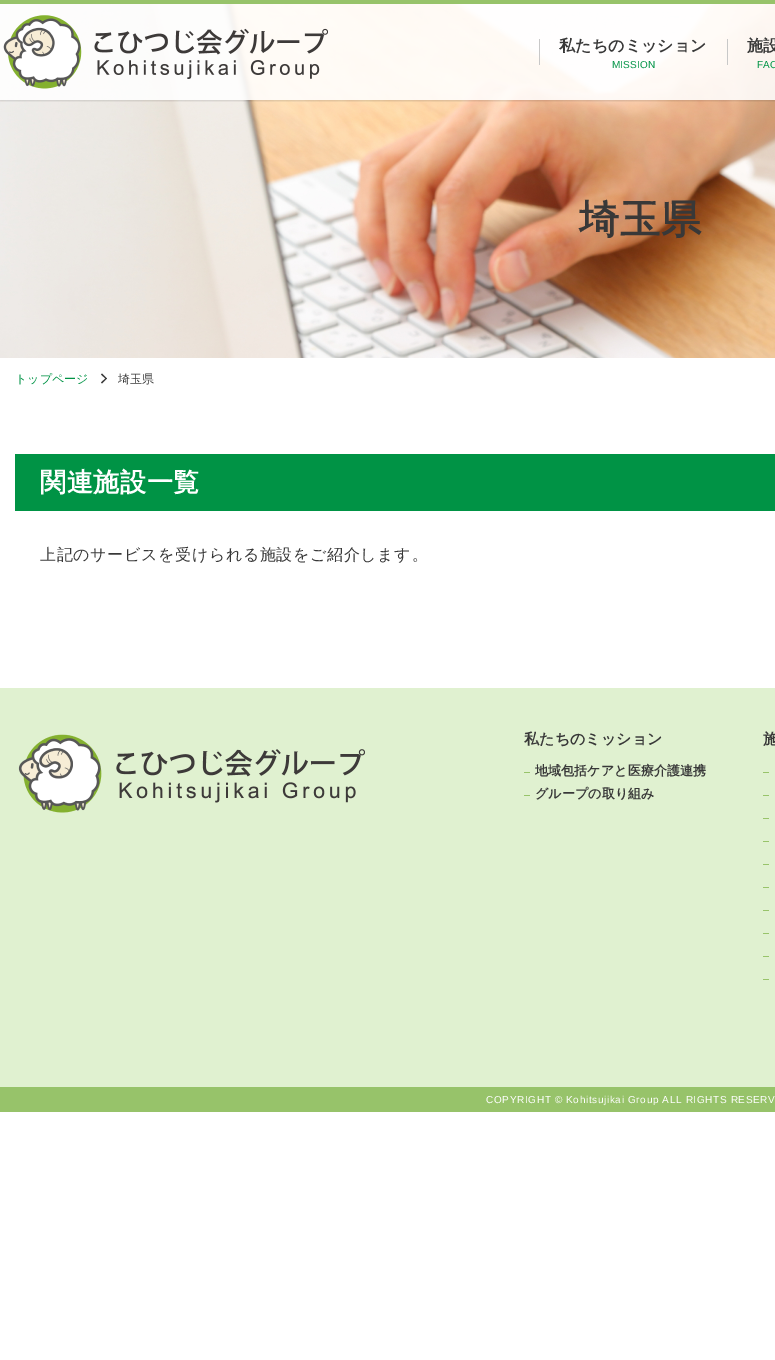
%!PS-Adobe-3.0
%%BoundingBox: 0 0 775 1360
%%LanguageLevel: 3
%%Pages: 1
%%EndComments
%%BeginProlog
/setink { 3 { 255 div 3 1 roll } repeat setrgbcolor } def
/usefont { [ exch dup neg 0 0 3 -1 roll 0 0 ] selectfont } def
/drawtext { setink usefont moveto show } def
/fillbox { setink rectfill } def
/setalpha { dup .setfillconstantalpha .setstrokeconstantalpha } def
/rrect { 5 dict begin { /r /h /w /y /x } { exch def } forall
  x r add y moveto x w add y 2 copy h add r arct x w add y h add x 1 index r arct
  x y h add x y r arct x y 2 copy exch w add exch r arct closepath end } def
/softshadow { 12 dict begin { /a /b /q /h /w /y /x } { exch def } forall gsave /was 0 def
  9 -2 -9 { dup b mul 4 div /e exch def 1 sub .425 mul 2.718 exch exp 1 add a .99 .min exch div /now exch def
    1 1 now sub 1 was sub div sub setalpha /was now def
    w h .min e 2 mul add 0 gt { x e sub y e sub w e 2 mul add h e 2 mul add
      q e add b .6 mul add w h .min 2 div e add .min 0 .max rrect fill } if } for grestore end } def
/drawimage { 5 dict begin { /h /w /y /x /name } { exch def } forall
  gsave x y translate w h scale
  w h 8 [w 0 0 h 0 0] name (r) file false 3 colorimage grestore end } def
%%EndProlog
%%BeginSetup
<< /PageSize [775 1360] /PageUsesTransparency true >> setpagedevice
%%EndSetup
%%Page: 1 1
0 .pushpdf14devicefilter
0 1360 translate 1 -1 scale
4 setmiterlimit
0 0 775 1360 255 255 255 fillbox
(assets/img2.rgb) 0 4 775 354 drawimage
gsave
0 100 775 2 rectclip
54 53 58 setink
0 1 775 100 0 1 0.2 softshadow
grestore
0.87 setalpha
0 4 775 96 255 255 255 fillbox
1 setalpha
0 0 775 4 151 195 106 fillbox
(assets/img1.rgb) 3 15 325 74 drawimage
539 39 1 26 200 200 200 fillbox
/WenQuanYiZenHei-Bold 16 usefont
56 56 56 setink
559 51 moveto 0.1 0 (私たちのミッション) ashow
/LiberationSans-Regular 10 usefont
0 147 69 setink
612 68 moveto 0.1 0 (MISSION) ashow
727 39 1 26 200 200 200 fillbox
/WenQuanYiZenHei-Bold 16 usefont
56 56 56 setink
747 51 moveto 0.1 0 (施設) ashow
/LiberationSans-Regular 10 usefont
0 147 69 setink
757 68 moveto 0.1 0 (FAC) ashow
/WenQuanYiZenHei-Bold 40 usefont
56 56 56 setink
579 233 moveto 1 0 (埼玉県) ashow
(トップページ) 15 383 /WenQuanYiZenHei-Medium 12 0 147 69 drawtext
56 56 56 setink
102 373.5 moveto 107 378.5 lineto 106 379 lineto 101 374.5 lineto closepath fill
106 378 moveto 107 378.5 lineto 102 383.5 lineto 101 382.5 lineto closepath fill
(埼玉県) 118 383 /WenQuanYiZenHei-Medium 12 56 56 56 drawtext
15 454 760 57 0 147 69 fillbox
/WenQuanYiZenHei-Bold 26 usefont
255 255 255 setink
40 491 moveto 0.65 0 (関連施設一覧) ashow
/WenQuanYiZenHei-Medium 16 usefont
56 56 56 setink
40 560 moveto 0.65 0 (上記のサービスを受けられる施設をご紹介します。) ashow
0 688 775 399 224 241 208 fillbox
(assets/img3.rgb) 18 734 347 79 drawimage
/WenQuanYiZenHei-Bold 15 usefont
56 56 56 setink
524 744 moveto 0.1 0 (私たちのミッション) ashow
524 772 6 1 152 196 106 fillbox
/WenQuanYiZenHei-Bold 13 usefont
56 56 56 setink
535 775 moveto 0.1 0 (地域包括ケアと医療介護連携) ashow
524 795 6 1 152 196 106 fillbox
56 56 56 setink
535 798 moveto 0.1 0 (グループの取り組み) ashow
/WenQuanYiZenHei-Bold 15 usefont
763 744 moveto 0.1 0 (施) ashow
763 772 6 1 152 196 106 fillbox
763 795 6 1 152 196 106 fillbox
763 818 6 1 152 196 106 fillbox
763 841 6 1 152 196 106 fillbox
763 864 6 1 152 196 106 fillbox
763 887 6 1 152 196 106 fillbox
763 910 6 1 152 196 106 fillbox
763 933 6 1 152 196 106 fillbox
763 956 6 1 152 196 106 fillbox
763 979 6 1 152 196 106 fillbox
0 1087 775 25 151 195 106 fillbox
/LiberationSans-Regular 10 usefont
255 255 255 setink
486 1103 moveto 0.65 0 (COPYRIGHT © Kohitsujikai Group ALL RIGHTS RESERV) ashow
.poppdf14devicefilter showpage
%%EOF
